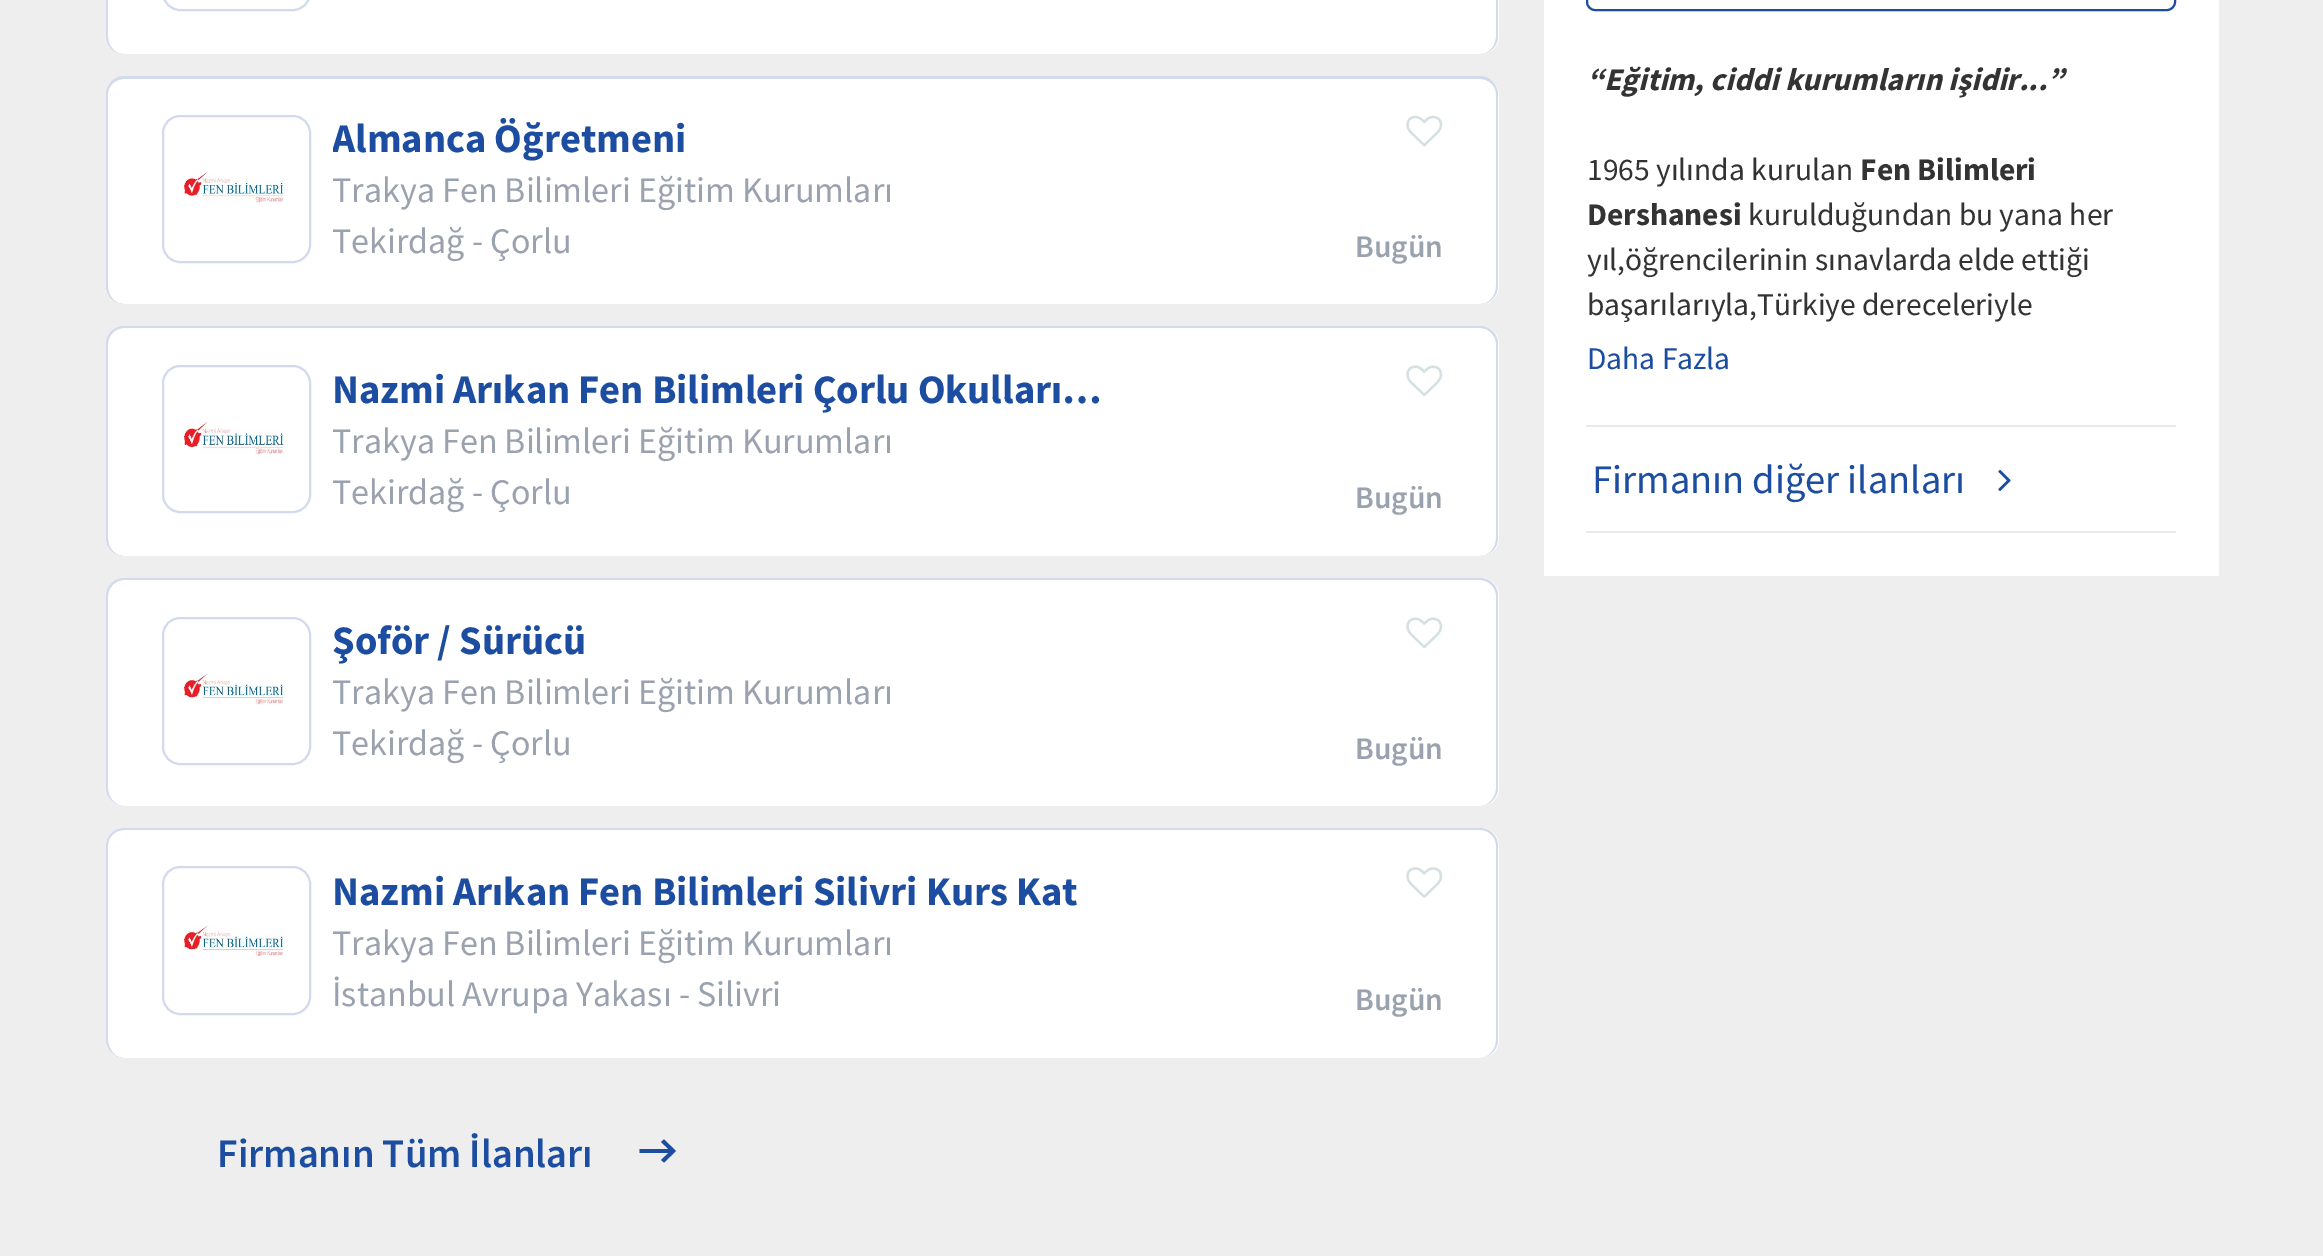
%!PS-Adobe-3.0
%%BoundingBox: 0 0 2323 1256
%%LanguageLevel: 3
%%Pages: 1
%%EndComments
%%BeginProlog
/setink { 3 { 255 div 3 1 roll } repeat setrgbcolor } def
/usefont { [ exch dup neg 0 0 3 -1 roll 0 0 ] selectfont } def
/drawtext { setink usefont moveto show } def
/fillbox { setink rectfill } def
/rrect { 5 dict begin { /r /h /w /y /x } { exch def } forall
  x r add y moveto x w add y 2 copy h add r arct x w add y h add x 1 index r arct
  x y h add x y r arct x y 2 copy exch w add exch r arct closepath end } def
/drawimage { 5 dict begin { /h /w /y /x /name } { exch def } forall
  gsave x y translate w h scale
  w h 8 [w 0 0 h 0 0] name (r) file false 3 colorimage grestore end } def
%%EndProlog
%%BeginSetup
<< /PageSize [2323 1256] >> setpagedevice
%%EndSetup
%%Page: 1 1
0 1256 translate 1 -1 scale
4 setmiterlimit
0 0 2323 1256 238 238 238 fillbox
255 255 255 setink
106 -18 1393 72 18 rrect fill
210 219 236 setink
124 -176 moveto 1480 -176 lineto 1490 -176 1498 -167 1498 -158 curveto 1498 36 lineto 1498 46 1490 54 1480 54 curveto 124 54 lineto 114 54 106 46 106 36 curveto 106 -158 lineto 106 -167 114 -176 124 -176 curveto closepath 124 -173 moveto 1480 -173 lineto 1489 -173 1496 -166 1496 -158 curveto 1496 36 lineto 1496 46 1489 54 1480 54 curveto 124 54 lineto 115 54 108 46 108 36 curveto 108 -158 lineto 108 -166 115 -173 124 -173 curveto closepath eofill
2 setlinewidth
163 -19 147 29 17 rrect stroke
255 255 255 setink
106 77 1393 227 18 rrect fill
210 219 236 setink
124 76 moveto 1480 76 lineto 1490 76 1498 85 1498 94 curveto 1498 286 lineto 1498 296 1490 304 1480 304 curveto 124 304 lineto 114 304 106 296 106 286 curveto 106 94 lineto 106 85 114 76 124 76 curveto closepath 124 79 moveto 1480 79 lineto 1489 79 1496 86 1496 94 curveto 1496 286 lineto 1496 296 1489 304 1480 304 curveto 124 304 lineto 115 304 108 296 108 286 curveto 108 94 lineto 108 86 115 79 124 79 curveto closepath eofill
163 116 147 146 17 rrect stroke
(assets/img1.rgb) 181 171 106 33 drawimage
gsave
333 115 779 49 rectclip
(Almanca Öğretmeni) 332 152 /SourceSansPro-Bold 40.5 28 77 161 drawtext
grestore
gsave
333 164 779 50 rectclip
(Trakya Fen Bilimleri Eğitim Kurumları) 332 202 /SourceSansPro-Regular 36 154 162 175 drawtext
grestore
gsave
333 214 779 52 rectclip
(Tekirdağ - Çorlu) 332 253 /SourceSansPro-Regular 36 154 162 175 drawtext
grestore
(assets/img2.rgb) 1406 115 37 32 drawimage
(Bugün) 1355 257 /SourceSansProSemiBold-SemiBold 31.5 154 162 175 drawtext
255 255 255 setink
106 326 1393 230 18 rrect fill
210 219 236 setink
124 326 moveto 1480 326 lineto 1490 326 1498 334 1498 344 curveto 1498 538 lineto 1498 548 1490 556 1480 556 curveto 124 556 lineto 114 556 106 548 106 538 curveto 106 344 lineto 106 334 114 326 124 326 curveto closepath 124 328 moveto 1480 328 lineto 1489 328 1496 336 1496 344 curveto 1496 538 lineto 1496 548 1489 556 1480 556 curveto 124 556 lineto 115 556 108 548 108 538 curveto 108 344 lineto 108 336 115 328 124 328 curveto closepath eofill
163 366 147 146 17 rrect stroke
(assets/img3.rgb) 180 421 107 35 drawimage
(Nazmi Arıkan Fen Bilimleri Çorlu Okulları…) 332 403 /SourceSansPro-Bold 40.5 28 77 161 drawtext
gsave
333 414 779 52 rectclip
(Trakya Fen Bilimleri Eğitim Kurumları) 332 453 /SourceSansPro-Regular 36 154 162 175 drawtext
grestore
gsave
333 466 779 52 rectclip
(Tekirdağ - Çorlu) 332 504 /SourceSansPro-Regular 36 154 162 175 drawtext
grestore
(assets/img4.rgb) 1406 365 37 32 drawimage
(Bugün) 1355 508 /SourceSansProSemiBold-SemiBold 31.5 154 162 175 drawtext
255 255 255 setink
106 578 1393 228 18 rrect fill
210 219 236 setink
124 578 moveto 1480 578 lineto 1490 578 1498 586 1498 596 curveto 1498 788 lineto 1498 797 1490 806 1480 806 curveto 124 806 lineto 114 806 106 797 106 788 curveto 106 596 lineto 106 586 114 578 124 578 curveto closepath 124 580 moveto 1480 580 lineto 1489 580 1496 588 1496 596 curveto 1496 788 lineto 1496 797 1489 806 1480 806 curveto 124 806 lineto 115 806 108 797 108 788 curveto 108 596 lineto 108 588 115 580 124 580 curveto closepath eofill
163 618 147 146 17 rrect stroke
(assets/img5.rgb) 181 673 106 32 drawimage
(Şoför / Sürücü) 332 654 /SourceSansPro-Bold 40.5 28 77 161 drawtext
gsave
333 666 779 52 rectclip
(Trakya Fen Bilimleri Eğitim Kurumları) 332 704 /SourceSansPro-Regular 36 154 162 175 drawtext
grestore
gsave
333 718 779 49 rectclip
(Tekirdağ - Çorlu) 332 755 /SourceSansPro-Regular 36 154 162 175 drawtext
grestore
(assets/img4.rgb) 1406 617 37 32 drawimage
(Bugün) 1355 759 /SourceSansProSemiBold-SemiBold 31.5 154 162 175 drawtext
255 255 255 setink
106 828 1393 230 18 rrect fill
210 219 236 setink
124 828 moveto 1480 828 lineto 1490 828 1498 836 1498 846 curveto 1498 1040 lineto 1498 1049 1490 1058 1480 1058 curveto 124 1058 lineto 114 1058 106 1049 106 1040 curveto 106 846 lineto 106 836 114 828 124 828 curveto closepath 124 830 moveto 1480 830 lineto 1489 830 1496 837 1496 846 curveto 1496 1040 lineto 1496 1049 1489 1058 1480 1058 curveto 124 1058 lineto 115 1058 108 1049 108 1040 curveto 108 846 lineto 108 837 115 830 124 830 curveto closepath eofill
163 867 147 147 17 rrect stroke
(assets/img5.rgb) 181 925 106 32 drawimage
(Nazmi Arıkan Fen Bilimleri Silivri Kurs Kat) 332 905 /SourceSansPro-Bold 40.5 28 77 161 drawtext
gsave
333 916 779 52 rectclip
(Trakya Fen Bilimleri Eğitim Kurumları) 332 955 /SourceSansPro-Regular 36 154 162 175 drawtext
grestore
(İstanbul Avrupa Yakası - Silivri) 332 1006 /SourceSansPro-Regular 36 154 162 175 drawtext
(assets/img6.rgb) 1406 867 37 31 drawimage
(Bugün) 1355 1010 /SourceSansProSemiBold-SemiBold 31.5 154 162 175 drawtext
(Firmanın Tüm İlanları) 217 1167 /SourceSansProSemiBold-SemiBold 40.5 28 77 161 drawtext
639.5 1149 moveto 668.5 1149 lineto 661 1142 lineto 664 1139.5 lineto 676 1151 lineto 664 1162.5 lineto 661 1160 lineto 668.5 1153 lineto 639.5 1153 lineto closepath fill
1544 0 675 576 255 255 255 fillbox
28 77 161 setink
1587 -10 588 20 8 rrect stroke
(“Eğitim, ciddi kurumların işidir...”) 1587 90 /SourceSansPro-BoldItalic 31.5 51 51 51 drawtext
(1965 yılında kurulan) 1587 180 /SourceSansPro-Regular 31.5 51 51 51 drawtext
(Fen Bilimleri) 1860 180 /SourceSansPro-Bold 31.5 51 51 51 drawtext
(Dershanesi) 1587 225 /SourceSansPro-Bold 31.5 51 51 51 drawtext
(kurulduğundan bu yana her) 1748 225 /SourceSansPro-Regular 31.5 51 51 51 drawtext
(yıl,öğrencilerinin sınavlarda elde ettiği) 1587 270 /SourceSansPro-Regular 31.5 51 51 51 drawtext
(başarılarıyla,Türkiye dereceleriyle) 1587 315 /SourceSansPro-Regular 31.5 51 51 51 drawtext
(Daha Fazla) 1587 369 /SourceSansPro-Regular 31.5 28 77 161 drawtext
1586 425 590 2 234 234 234 fillbox
1586 531 590 2 234 234 234 fillbox
(Firmanın diğer ilanları) 1592 493 /SourceSansPro-Regular 40.5 28 77 161 drawtext
(assets/img7.rgb) 1998 469 13 22 drawimage
showpage
%%EOF
